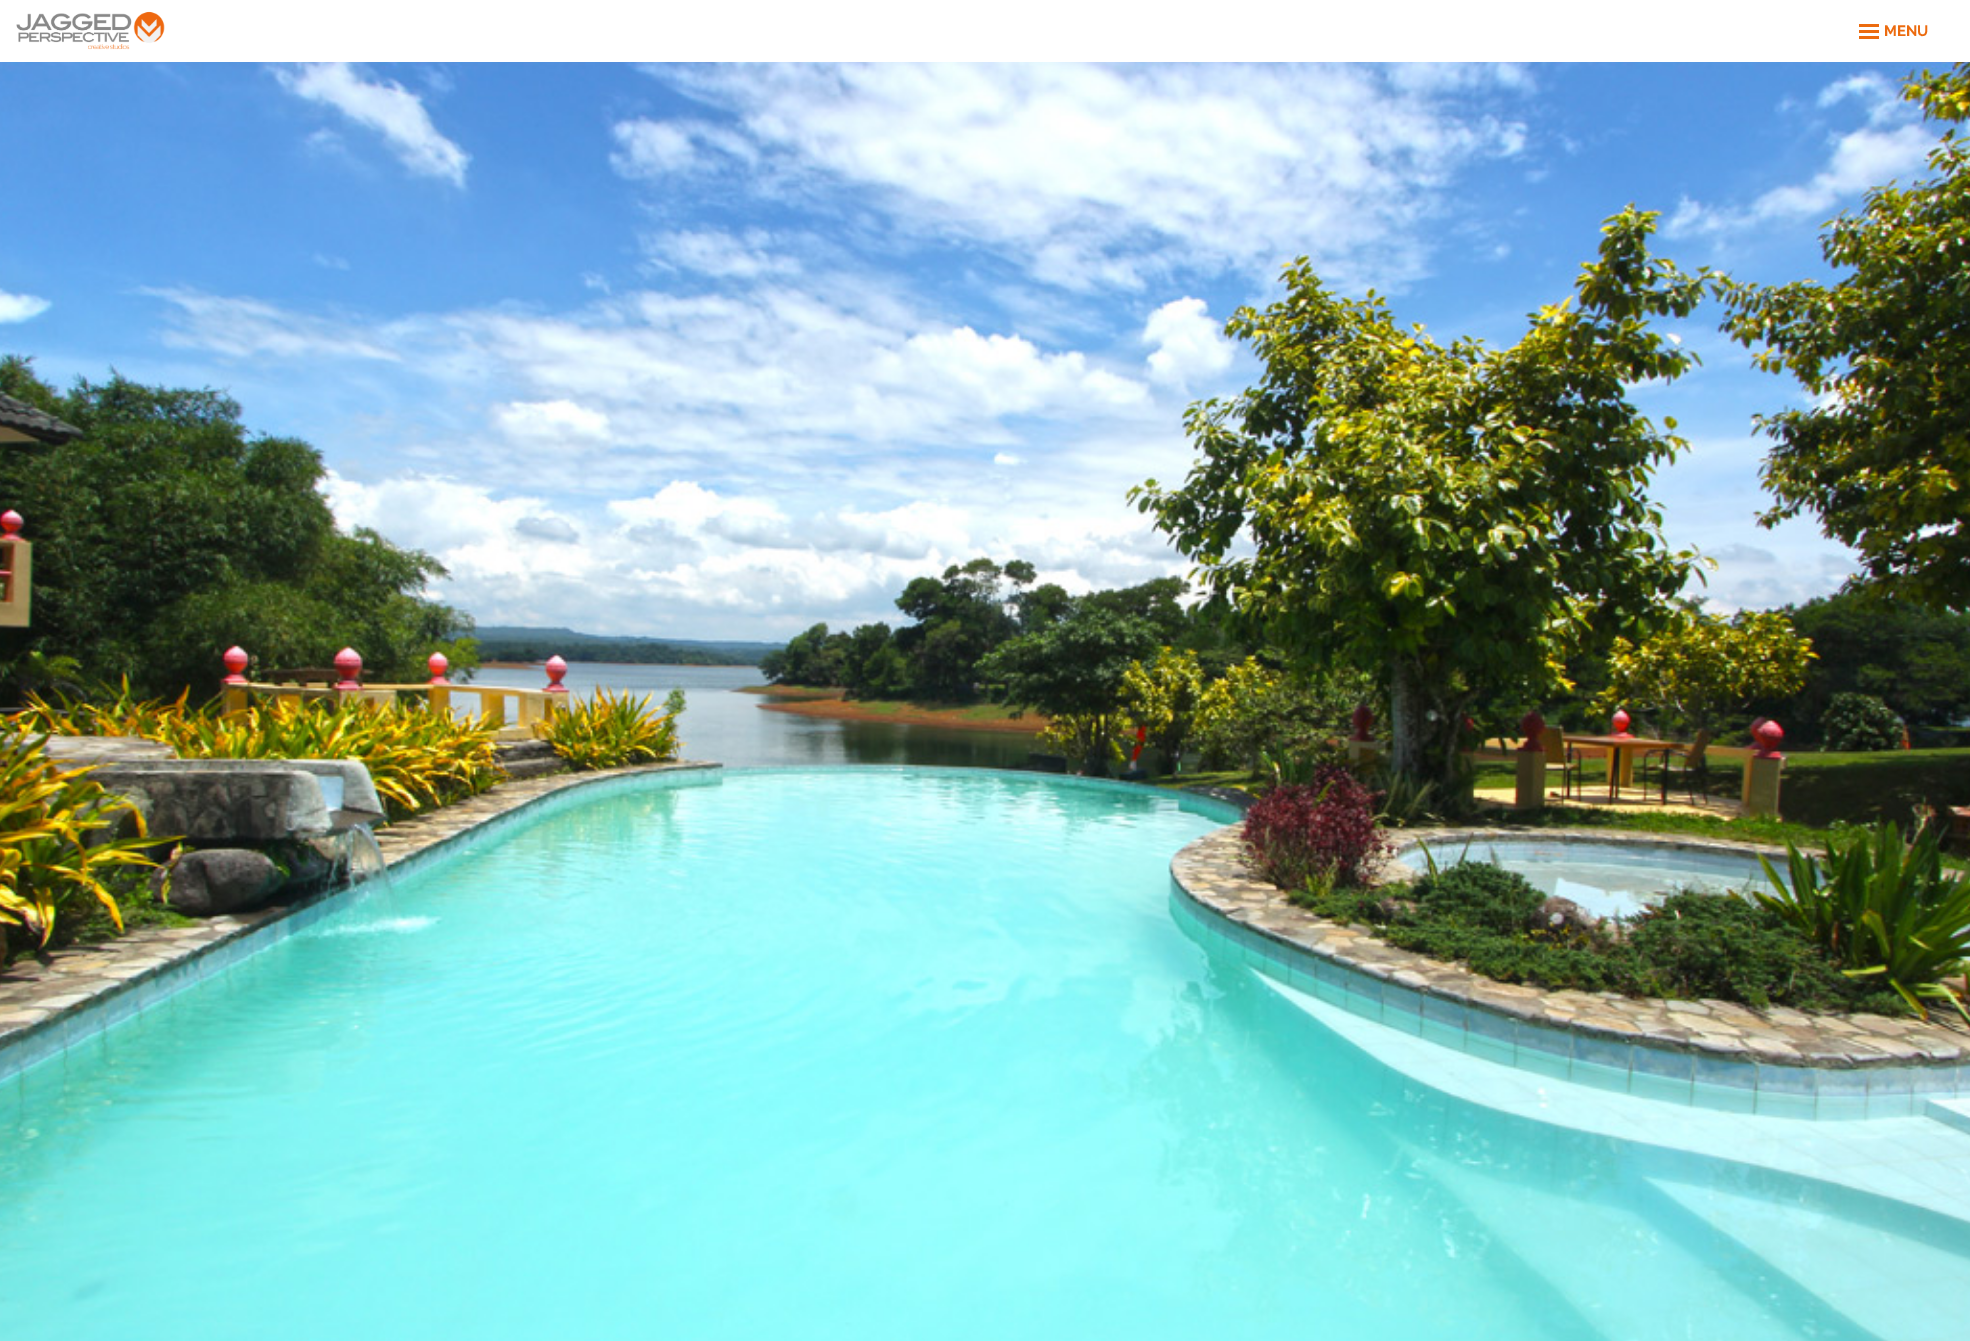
%!PS-Adobe-3.0
%%BoundingBox: 0 0 1970 1341
%%LanguageLevel: 3
%%Pages: 1
%%EndComments
%%BeginProlog
/setink { 3 { 255 div 3 1 roll } repeat setrgbcolor } def
/usefont { [ exch dup neg 0 0 3 -1 roll 0 0 ] selectfont } def
/drawtext { setink usefont moveto show } def
/fillbox { setink rectfill } def
/drawimage { 5 dict begin { /h /w /y /x /name } { exch def } forall
  gsave x y translate w h scale
  w h 8 [w 0 0 h 0 0] name (r) file false 3 colorimage grestore end } def
%%EndProlog
%%BeginSetup
<< /PageSize [1970 1341] >> setpagedevice
%%EndSetup
%%Page: 1 1
0 1341 translate 1 -1 scale
4 setmiterlimit
0 0 1970 1341 255 255 255 fillbox
(assets/img1.rgb) 16 11 149 39 drawimage
1859 24 20 3 236 107 15 fillbox
(MENU) 1884 36 /Raleway-Bold 15 236 107 15 drawtext
1859 30 20 3 236 107 15 fillbox
1859 36 20 3 236 107 15 fillbox
(assets/img2.rgb) 0 62 1970 1279 drawimage
showpage
%%EOF
